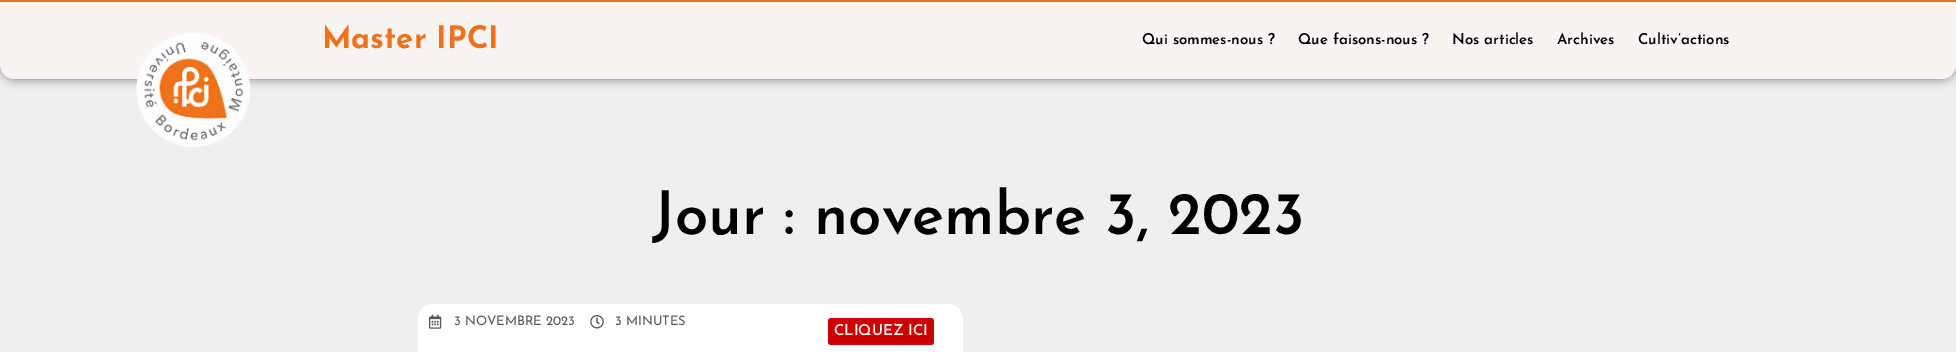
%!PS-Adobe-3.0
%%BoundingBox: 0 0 1956 352
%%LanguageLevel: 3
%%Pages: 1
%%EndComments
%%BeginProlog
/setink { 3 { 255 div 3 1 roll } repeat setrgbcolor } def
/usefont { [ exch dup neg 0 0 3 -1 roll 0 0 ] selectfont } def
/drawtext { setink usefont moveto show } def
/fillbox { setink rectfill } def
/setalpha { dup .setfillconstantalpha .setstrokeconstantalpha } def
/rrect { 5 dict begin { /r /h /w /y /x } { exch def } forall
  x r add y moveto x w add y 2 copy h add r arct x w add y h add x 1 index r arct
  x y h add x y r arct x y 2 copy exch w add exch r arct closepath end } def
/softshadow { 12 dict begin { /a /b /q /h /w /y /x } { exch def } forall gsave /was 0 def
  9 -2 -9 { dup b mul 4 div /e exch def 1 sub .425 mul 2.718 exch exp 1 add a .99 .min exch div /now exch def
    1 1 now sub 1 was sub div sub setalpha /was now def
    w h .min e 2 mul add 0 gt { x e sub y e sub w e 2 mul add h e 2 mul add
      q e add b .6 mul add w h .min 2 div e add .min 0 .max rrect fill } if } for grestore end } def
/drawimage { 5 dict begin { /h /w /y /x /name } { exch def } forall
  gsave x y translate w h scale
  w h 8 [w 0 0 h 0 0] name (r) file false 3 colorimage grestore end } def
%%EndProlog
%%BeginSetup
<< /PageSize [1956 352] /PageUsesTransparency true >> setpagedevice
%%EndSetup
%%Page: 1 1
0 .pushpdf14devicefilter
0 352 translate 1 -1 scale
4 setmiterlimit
0 0 1956 352 239 239 239 fillbox
0 0 0 setink
0 0 1956 79 15 5 0.5 softshadow
249 244 244 setink
0 2 moveto 1956 2 lineto 1956 64 lineto 1956 72.5 1949.5 79 1941 79 curveto 15 79 lineto 6.5 79 0 72.5 0 64 curveto closepath fill
0 0 1956 2 238 114 26 fillbox
(assets/img1.rgb) 136 33 115 114 drawimage
(Master IPCI) 322 48 /JosefinSans-Bold 31 238 114 26 drawtext
(Qui sommes-nous ?) 1142 44 /JosefinSans-SemiBold 15 0 0 0 drawtext
(Que faisons-nous ?) 1298 44 /JosefinSans-SemiBold 15 0 0 0 drawtext
(Nos articles) 1452 44 /JosefinSans-SemiBold 15 0 0 0 drawtext
(Archives) 1557 44 /JosefinSans-SemiBold 15 0 0 0 drawtext
(Cultiv’actions) 1638 44 /JosefinSans-SemiBold 15 0 0 0 drawtext
(Jour : novembre 3, 2023) 652 234 /JosefinSans-SemiBold 60 0 0 0 drawtext
255 255 255 setink
418.5 304.5 544 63 14.5 rrect gsave fill grestore
stroke
(assets/img2.rgb) 429 314 13 15 drawimage
(3 NOVEMBRE 2023) 454 325 /JosefinSans-Regular 13 84 89 95 drawtext
(assets/img3.rgb) 590 315 14 14 drawimage
(3 MINUTES) 615 325 /JosefinSans-Regular 13 84 89 95 drawtext
204 0 0 setink
828 318 106 27 3 rrect fill
(CLIQUEZ ICI) 834 335 /JosefinSans-Medium 15 255 255 255 drawtext
.poppdf14devicefilter showpage
%%EOF
